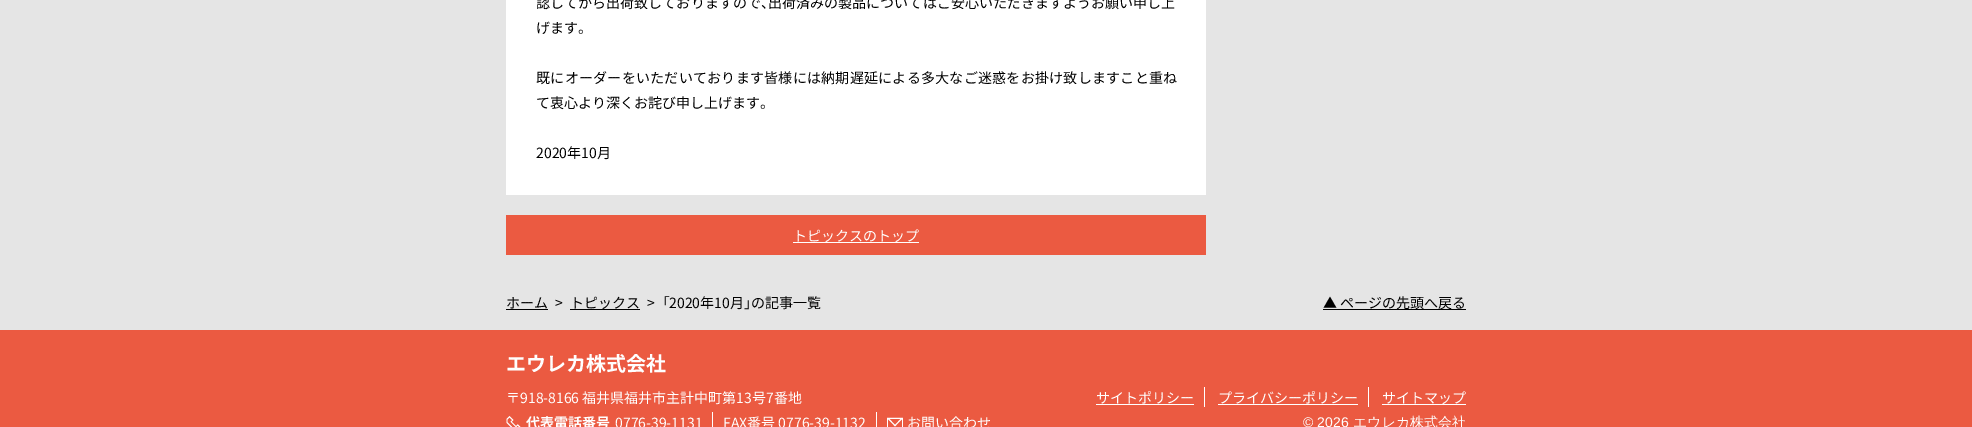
%!PS-Adobe-3.0
%%BoundingBox: 0 0 1972 427
%%LanguageLevel: 3
%%Pages: 1
%%EndComments
%%BeginProlog
/setink { 3 { 255 div 3 1 roll } repeat setrgbcolor } def
/usefont { [ exch dup neg 0 0 3 -1 roll 0 0 ] selectfont } def
/drawtext { setink usefont moveto show } def
/fillbox { setink rectfill } def
/drawimage { 5 dict begin { /h /w /y /x /name } { exch def } forall
  gsave x y translate w h scale
  w h 8 [w 0 0 h 0 0] name (r) file false 3 colorimage grestore end } def
%%EndProlog
%%BeginSetup
<< /PageSize [1972 427] >> setpagedevice
%%EndSetup
%%Page: 1 1
0 427 translate 1 -1 scale
4 setmiterlimit
0 0 1972 427 235 90 65 fillbox
0 0 1972 330 229 229 229 fillbox
506 0 700 195 255 255 255 fillbox
/NotoSansJP-Regular 14 usefont
0 0 0 setink
536 8 moveto 0.05 0 (認してから出荷致しておりますので) ashow
/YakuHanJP-Regular 14 usefont
761 8 moveto 0.05 0 (、) ashow
/NotoSansJP-Regular 14 usefont
768 8 moveto 0.05 0 (出荷済みの製品についてはご安心いただきますようお願い申し上) ashow
(げます) 536 33 /NotoSansJP-Regular 14 0 0 0 drawtext
(。) 578 33 /YakuHanJP-Regular 14 0 0 0 drawtext
/NotoSansJP-Regular 14 usefont
536 83 moveto 0.25 0 (既にオーダーをいただいております皆様には納期遅延による多大なご迷惑をお掛け致しますこと重ね) ashow
(て衷心より深くお詫び申し上げます) 536 108 /NotoSansJP-Regular 14 0 0 0 drawtext
(。) 760 108 /YakuHanJP-Regular 14 0 0 0 drawtext
(2020年10月) 536 158 /NotoSansJP-Regular 14 0 0 0 drawtext
506 215 700 40 235 90 65 fillbox
793 242 126 1 255 255 255 fillbox
(トピックスのトップ) 793 241 /NotoSansJP-Regular 14 255 255 255 drawtext
(ホーム) 506 308 /NotoSansJP-Regular 14 0 0 0 drawtext
506 309 42 1 0 0 0 fillbox
(>) 555 308 /NotoSansJP-Regular 14 0 0 0 drawtext
570 309 70 1 0 0 0 fillbox
(トピックス) 570 308 /NotoSansJP-Regular 14 0 0 0 drawtext
(>) 647 308 /NotoSansJP-Regular 14 0 0 0 drawtext
(「) 662 308 /YakuHanJP-Regular 14 0 0 0 drawtext
(2020年10月) 669 308 /NotoSansJP-Regular 14 0 0 0 drawtext
(」) 744 308 /YakuHanJP-Regular 14 0 0 0 drawtext
(の記事一覧) 751 308 /NotoSansJP-Regular 14 0 0 0 drawtext
1323 309 143 1 0 0 0 fillbox
(▲ ページの先頭へ戻る) 1323 308 /NotoSansJP-Regular 14 0 0 0 drawtext
(エウレカ株式会社) 506 371 /NotoSansJP-Bold 20 255 255 255 drawtext
(〒918-8166 福井県福井市主計中町第13号7番地) 506 403 /NotoSansJP-Regular 14 255 255 255 drawtext
(assets/img1.rgb) 506 416 15 11 drawimage
(代表電話番号) 526 428 /NotoSansJP-Bold 14 255 255 255 drawtext
(0776-39-1131) 615 428 /NotoSansJP-Regular 14 255 255 255 drawtext
712 412 1 15 255 255 255 fillbox
(FAX番号 0776-39-1132) 723 428 /NotoSansJP-Regular 14 255 255 255 drawtext
876 412 1 15 255 255 255 fillbox
(assets/img2.rgb) 887 417 16 10 drawimage
(お問い合わせ) 907 428 /NotoSansJP-Regular 14 255 255 255 drawtext
(サイトポリシー) 1096 403 /NotoSansJP-Regular 14 255 255 255 drawtext
1204 387 1 20 255 255 255 fillbox
1096 404 98 1 255 255 255 fillbox
(プライバシーポリシー) 1218 403 /NotoSansJP-Regular 14 255 255 255 drawtext
1368 387 1 20 255 255 255 fillbox
1218 404 140 1 255 255 255 fillbox
1382 404 84 1 255 255 255 fillbox
(サイトマップ) 1382 403 /NotoSansJP-Regular 14 255 255 255 drawtext
(© 2026) 1303 427 /LiberationSans-Regular 14 255 255 255 drawtext
(エウレカ株式会社) 1353 427 /WenQuanYiZenHei-Medium 14 255 255 255 drawtext
showpage
%%EOF
